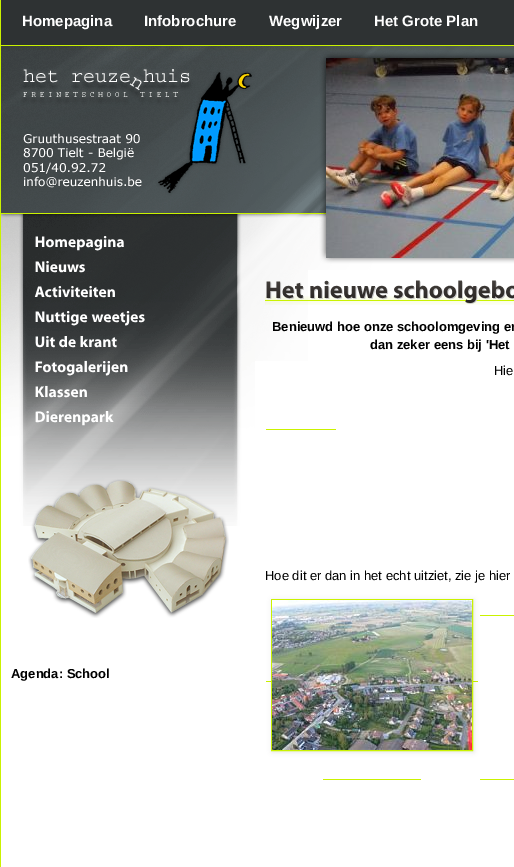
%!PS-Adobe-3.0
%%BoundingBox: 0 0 514 867
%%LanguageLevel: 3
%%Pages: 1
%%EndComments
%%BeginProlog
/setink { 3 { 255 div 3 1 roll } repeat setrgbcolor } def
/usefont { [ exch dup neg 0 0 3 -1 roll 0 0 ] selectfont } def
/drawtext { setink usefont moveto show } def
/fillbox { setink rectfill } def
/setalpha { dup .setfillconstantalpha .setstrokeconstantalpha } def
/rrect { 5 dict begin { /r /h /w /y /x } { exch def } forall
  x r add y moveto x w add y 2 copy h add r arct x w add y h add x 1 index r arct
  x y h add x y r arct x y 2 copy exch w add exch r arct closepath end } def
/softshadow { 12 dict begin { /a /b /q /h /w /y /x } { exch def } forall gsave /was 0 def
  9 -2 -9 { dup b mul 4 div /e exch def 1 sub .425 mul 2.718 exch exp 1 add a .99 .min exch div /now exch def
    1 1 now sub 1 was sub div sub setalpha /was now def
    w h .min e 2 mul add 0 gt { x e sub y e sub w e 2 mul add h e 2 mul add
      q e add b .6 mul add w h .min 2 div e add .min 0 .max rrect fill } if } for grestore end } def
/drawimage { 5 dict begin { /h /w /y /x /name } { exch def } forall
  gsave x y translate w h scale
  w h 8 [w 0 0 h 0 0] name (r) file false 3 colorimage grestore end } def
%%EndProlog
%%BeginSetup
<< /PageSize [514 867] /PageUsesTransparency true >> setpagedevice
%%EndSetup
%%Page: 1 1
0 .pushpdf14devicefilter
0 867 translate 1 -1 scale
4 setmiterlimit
0 0 514 867 255 255 255 fillbox
0 0 1 867 202 242 0 fillbox
1 0 513 45 46 50 51 fillbox
1 45 513 1 202 242 0 fillbox
(Homepagina) 22 26 /LiberationSans-Bold 15 255 255 255 drawtext
(Infobrochure) 144 26 /LiberationSans-Bold 15 255 255 255 drawtext
(Wegwijzer) 269 26 /LiberationSans-Bold 15 255 255 255 drawtext
(Het Grote Plan) 374 26 /LiberationSans-Bold 15 255 255 255 drawtext
(assets/img1.rgb) 255 46 259 224 drawimage
(assets/img2.rgb) 326 58 188 200 drawimage
(assets/img3.rgb) 255 270 53 91 drawimage
(assets/img4.rgb) 265 296 249 9 drawimage
(assets/img5.rgb) 266 281 38 19 drawimage
(assets/img6.rgb) 310 280 79 20 drawimage
(assets/img7.rgb) 393 280 121 24 drawimage
(Benieuwd hoe onze schoolomgeving er) 272 331 /LiberationSans-Bold 13 0 0 0 drawtext
(dan zeker eens bij 'Het) 370 349 /LiberationSans-Bold 13 0 0 0 drawtext
(Hie) 494 375 /LiberationSans-Regular 13 0 0 0 drawtext
266 429 70 1 202 242 0 fillbox
(Hoe dit er dan in het echt uitziet, zie je hier) 265 580 /LiberationSans-Regular 13 0 0 0 drawtext
266 681 212 1 202 242 0 fillbox
0 0 0 setink
272 600 202 152 0 2.5 0.1 softshadow
202 242 0 setink
271.5 599.5 201 151 rectstroke
(assets/img8.rgb) 272 600 200 150 drawimage
480 615 34 1 202 242 0 fillbox
323 779 98 1 202 242 0 fillbox
480 779 34 1 202 242 0 fillbox
(assets/img9.rgb) 1 46 254 167 drawimage
(assets/img10.rgb) 1 213 254 313 drawimage
(assets/img11.rgb) 35 236 89 15 drawimage
(assets/img12.rgb) 35 261 50 12 drawimage
(assets/img13.rgb) 34 286 81 12 drawimage
(assets/img14.rgb) 35 311 53 15 drawimage
(assets/img15.rgb) 91 311 54 15 drawimage
(assets/img16.rgb) 35 336 20 12 drawimage
(assets/img17.rgb) 59 336 17 12 drawimage
(assets/img18.rgb) 80 336 37 12 drawimage
(assets/img19.rgb) 35 360 93 16 drawimage
(assets/img20.rgb) 35 385 52 13 drawimage
(assets/img21.rgb) 35 411 79 15 drawimage
(assets/img22.rgb) 28 479 201 139 drawimage
(Agenda: School) 11 678 /LiberationSans-Bold 13 0 0 0 drawtext
.poppdf14devicefilter showpage
%%EOF
